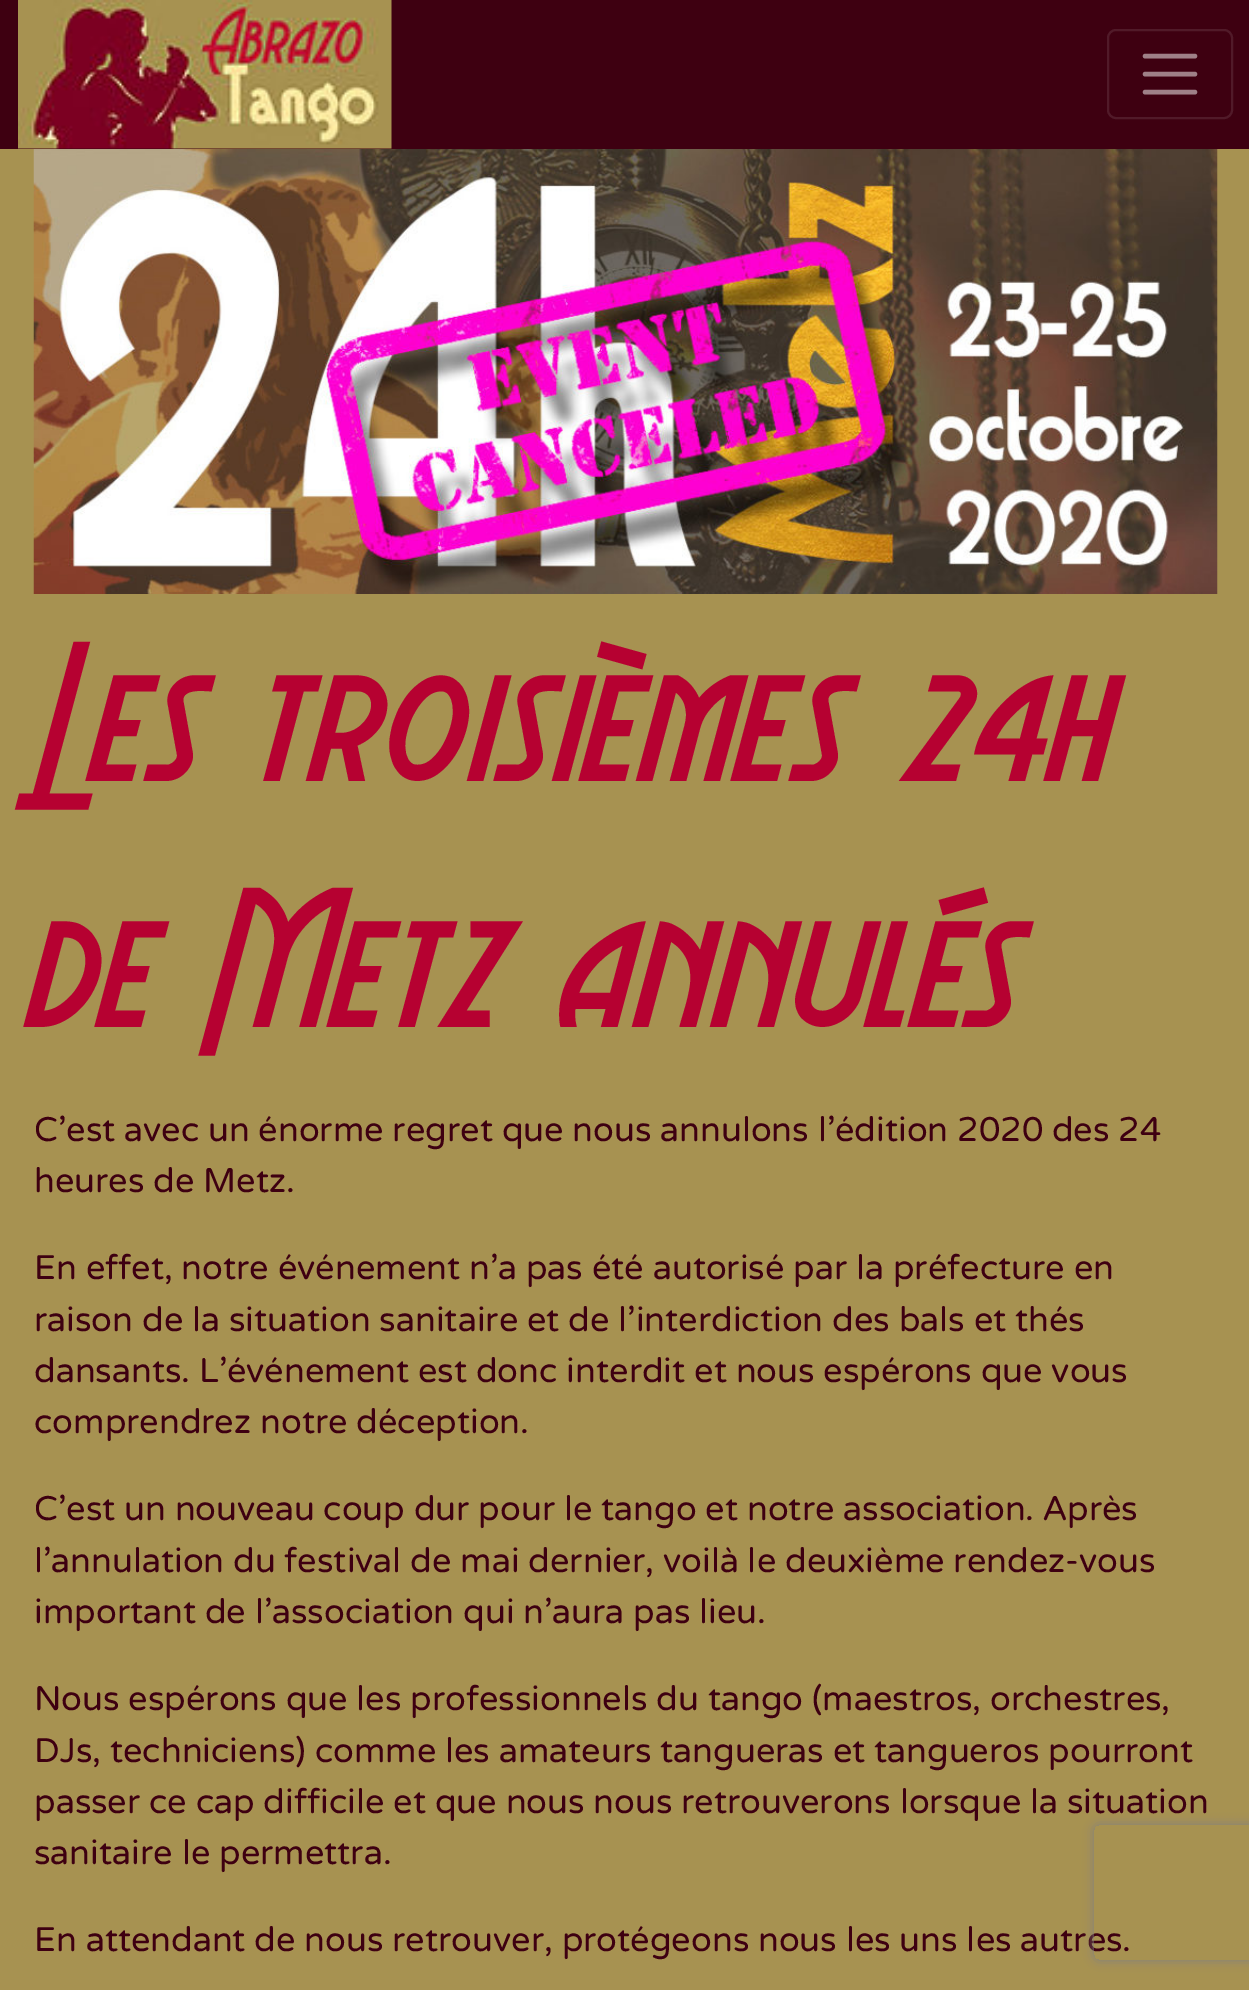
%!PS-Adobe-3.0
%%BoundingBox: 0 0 1249 1990
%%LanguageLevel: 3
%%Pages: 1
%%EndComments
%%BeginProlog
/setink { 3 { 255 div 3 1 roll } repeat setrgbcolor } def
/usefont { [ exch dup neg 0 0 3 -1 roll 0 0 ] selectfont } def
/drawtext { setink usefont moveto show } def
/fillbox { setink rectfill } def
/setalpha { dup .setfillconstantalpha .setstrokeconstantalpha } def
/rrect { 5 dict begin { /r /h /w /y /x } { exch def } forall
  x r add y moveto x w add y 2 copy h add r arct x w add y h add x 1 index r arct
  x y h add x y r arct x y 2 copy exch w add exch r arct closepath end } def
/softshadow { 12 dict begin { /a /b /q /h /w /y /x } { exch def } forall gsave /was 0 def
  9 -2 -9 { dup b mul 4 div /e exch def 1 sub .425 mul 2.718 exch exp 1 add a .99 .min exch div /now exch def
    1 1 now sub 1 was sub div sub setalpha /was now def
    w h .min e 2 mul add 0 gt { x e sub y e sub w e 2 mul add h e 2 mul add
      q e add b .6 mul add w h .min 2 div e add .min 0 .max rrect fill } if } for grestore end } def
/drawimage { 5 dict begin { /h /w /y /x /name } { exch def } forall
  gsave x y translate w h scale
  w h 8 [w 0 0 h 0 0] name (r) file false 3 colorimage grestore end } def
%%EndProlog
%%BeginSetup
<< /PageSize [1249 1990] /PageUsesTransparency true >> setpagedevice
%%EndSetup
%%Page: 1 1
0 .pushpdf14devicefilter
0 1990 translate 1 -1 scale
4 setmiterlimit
0 0 1249 1990 167 146 81 fillbox
0 0 1249 149 62 0 17 fillbox
(assets/img1.rgb) 18 0 374 149 drawimage
81 26 41 setink
2 setlinewidth
1108 30 124 88 8 rrect stroke
159 128 136 setink
4.5 setlinewidth
1 setlinecap
1145 56 moveto 1195 56 lineto 1145 74 moveto 1195 74 lineto 1145 92 moveto 1195 92 lineto stroke
(assets/img2.rgb) 33 149 1185 445 drawimage
(Les) 34 781 /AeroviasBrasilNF-Regular 205 182 1 49 drawtext
(troisièmes) 259 781 /AeroviasBrasilNF-Regular 205 182 1 49 drawtext
(24h) 906 781 /AeroviasBrasilNF-Regular 205 182 1 49 drawtext
(de) 34 1027 /AeroviasBrasilNF-Regular 205 182 1 49 drawtext
(Metz) 213 1027 /AeroviasBrasilNF-Regular 205 182 1 49 drawtext
(annulés) 564 1027 /AeroviasBrasilNF-Regular 205 182 1 49 drawtext
(C’est avec un énorme regret que nous annulons l’édition 2020 des 24) 34 1141 /VarelaRound-Regular 34.2 62 0 17 drawtext
(heures de Metz.) 34 1192 /VarelaRound-Regular 34.2 62 0 17 drawtext
(En effet, notre événement n’a pas été autorisé par la préfecture en) 34 1279 /VarelaRound-Regular 34.2 62 0 17 drawtext
(raison de la situation sanitaire et de l’interdiction des bals et thés) 34 1331 /VarelaRound-Regular 34.2 62 0 17 drawtext
(dansants. L’événement est donc interdit et nous espérons que vous) 34 1382 /VarelaRound-Regular 34.2 62 0 17 drawtext
(comprendrez notre déception.) 34 1433 /VarelaRound-Regular 34.2 62 0 17 drawtext
(C’est un nouveau coup dur pour le tango et notre association. Après) 34 1520 /VarelaRound-Regular 34.2 62 0 17 drawtext
(l’annulation du festival de mai dernier, voilà le deuxième rendez-vous) 34 1572 /VarelaRound-Regular 34.2 62 0 17 drawtext
(important de l’association qui n’aura pas lieu.) 34 1623 /VarelaRound-Regular 34.2 62 0 17 drawtext
(Nous espérons que les professionnels du tango \(maestros, orchestres,) 34 1710 /VarelaRound-Regular 34.2 62 0 17 drawtext
(DJs, techniciens\) comme les amateurs tangueras et tangueros pourront) 34 1762 /VarelaRound-Regular 34.2 62 0 17 drawtext
(passer ce cap difficile et que nous nous retrouverons lorsque la situation) 34 1813 /VarelaRound-Regular 34.2 62 0 17 drawtext
(sanitaire le permettra.) 34 1864 /VarelaRound-Regular 34.2 62 0 17 drawtext
(En attendant de nous retrouver, protégeons nous les uns les autres.) 34 1951 /VarelaRound-Regular 34.2 62 0 17 drawtext
gsave
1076 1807 moveto 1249 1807 lineto 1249 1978 lineto 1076 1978 lineto closepath 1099 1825 moveto 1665 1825 lineto 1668 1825 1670 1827 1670 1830 curveto 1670 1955 lineto 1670 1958 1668 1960 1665 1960 curveto 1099 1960 lineto 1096 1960 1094 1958 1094 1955 curveto 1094 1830 lineto 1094 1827 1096 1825 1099 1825 curveto closepath eoclip newpath
128 128 128 setink
1094 1825 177 135 5 5.5 1 softshadow
grestore
.poppdf14devicefilter showpage
%%EOF
